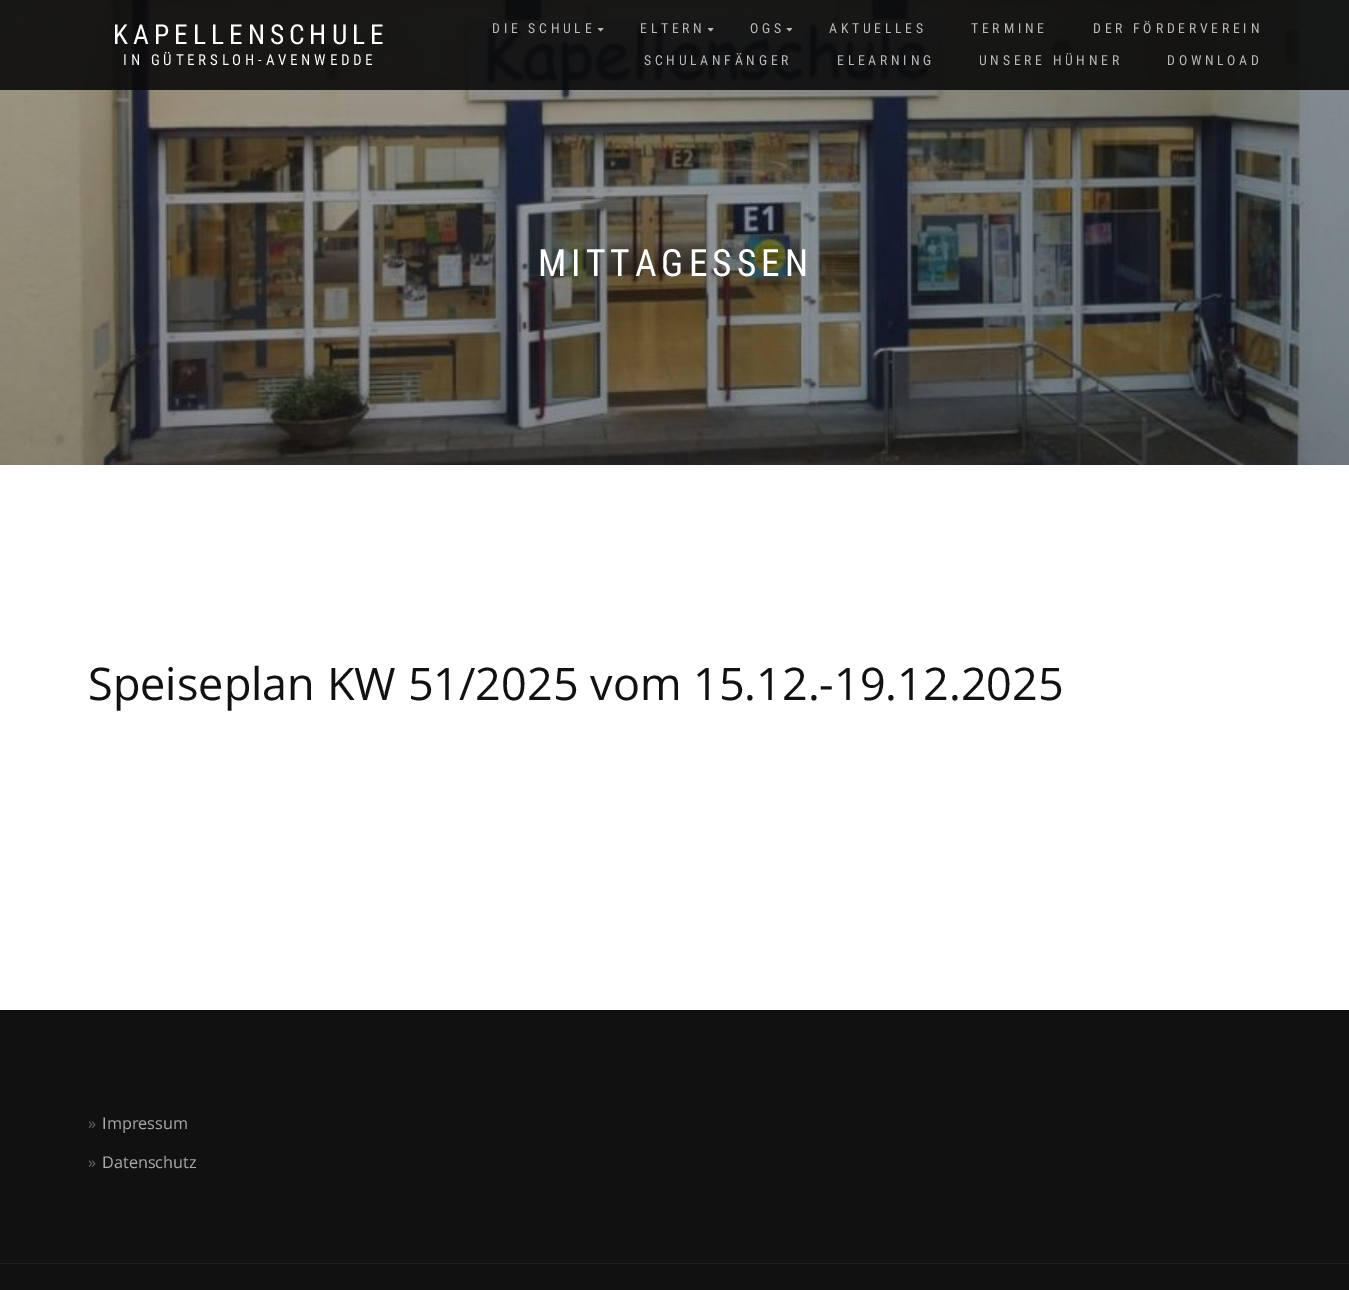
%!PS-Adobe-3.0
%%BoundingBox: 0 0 1349 1290
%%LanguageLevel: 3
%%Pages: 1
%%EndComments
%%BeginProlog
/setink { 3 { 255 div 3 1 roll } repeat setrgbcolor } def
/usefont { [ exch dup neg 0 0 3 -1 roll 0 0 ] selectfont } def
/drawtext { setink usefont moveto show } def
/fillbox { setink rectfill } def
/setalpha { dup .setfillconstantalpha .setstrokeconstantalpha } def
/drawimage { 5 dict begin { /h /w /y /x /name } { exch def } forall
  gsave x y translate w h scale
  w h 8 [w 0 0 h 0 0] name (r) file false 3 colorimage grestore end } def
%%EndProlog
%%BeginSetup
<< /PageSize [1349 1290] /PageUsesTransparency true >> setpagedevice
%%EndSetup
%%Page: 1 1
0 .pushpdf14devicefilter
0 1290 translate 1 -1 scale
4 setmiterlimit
0 0 1349 1290 255 255 255 fillbox
(assets/img4.rgb) 0 0 1349 465 drawimage
0.9 setalpha
0 0 1349 90 10 10 10 fillbox
/RobotoCondensed-Regular 27.5 usefont
1 setalpha
255 255 255 setink
113 44 moveto 5 0 (KAPELLENSCHULE) ashow
/RobotoCondensed-Regular 15 usefont
123 65 moveto 3.75 0 (IN GÜTERSLOH-AVENWEDDE) ashow
/RobotoCondensed-Regular 13.75 usefont
185 185 185 setink
492 33 moveto 3.75 0 (DIE SCHULE) ashow
(assets/img1.rgb) 597 28 7 4 drawimage
640 33 moveto 3.75 0 (ELTERN) ashow
(assets/img2.rgb) 707 28 7 4 drawimage
750 33 moveto 3.75 0 (OGS) ashow
(assets/img3.rgb) 786 28 7 4 drawimage
829 33 moveto 3.75 0 (AKTUELLES) ashow
971 33 moveto 3.75 0 (TERMINE) ashow
1093 33 moveto 3.75 0 (DER FÖRDERVEREIN) ashow
644 65 moveto 3.75 0 (SCHULANFÄNGER) ashow
837 65 moveto 3.75 0 (ELEARNING) ashow
979 65 moveto 3.75 0 (UNSERE HÜHNER) ashow
1167 65 moveto 3.75 0 (DOWNLOAD) ashow
/RobotoCondensed-Regular 37.5 usefont
255 255 255 setink
538 276 moveto 5 0 (MITTAGESSEN) ashow
(Speiseplan KW 51/2025 vom 15.12.-19.12.2025) 88 700 /OpenSans-Regular 45 17 17 17 drawtext
0 1010 1349 253 17 17 17 fillbox
(») 88 1129 /OpenSans-Regular 16.25 102 102 102 drawtext
(Impressum) 102 1129 /OpenSans-Regular 16.25 170 170 170 drawtext
(») 88 1168 /OpenSans-Regular 16.25 102 102 102 drawtext
(Datenschutz) 102 1168 /OpenSans-Regular 16.25 170 170 170 drawtext
0 1264 1349 26 17 17 17 fillbox
0 1263 1349 1 32 32 32 fillbox
.poppdf14devicefilter showpage
%%EOF
